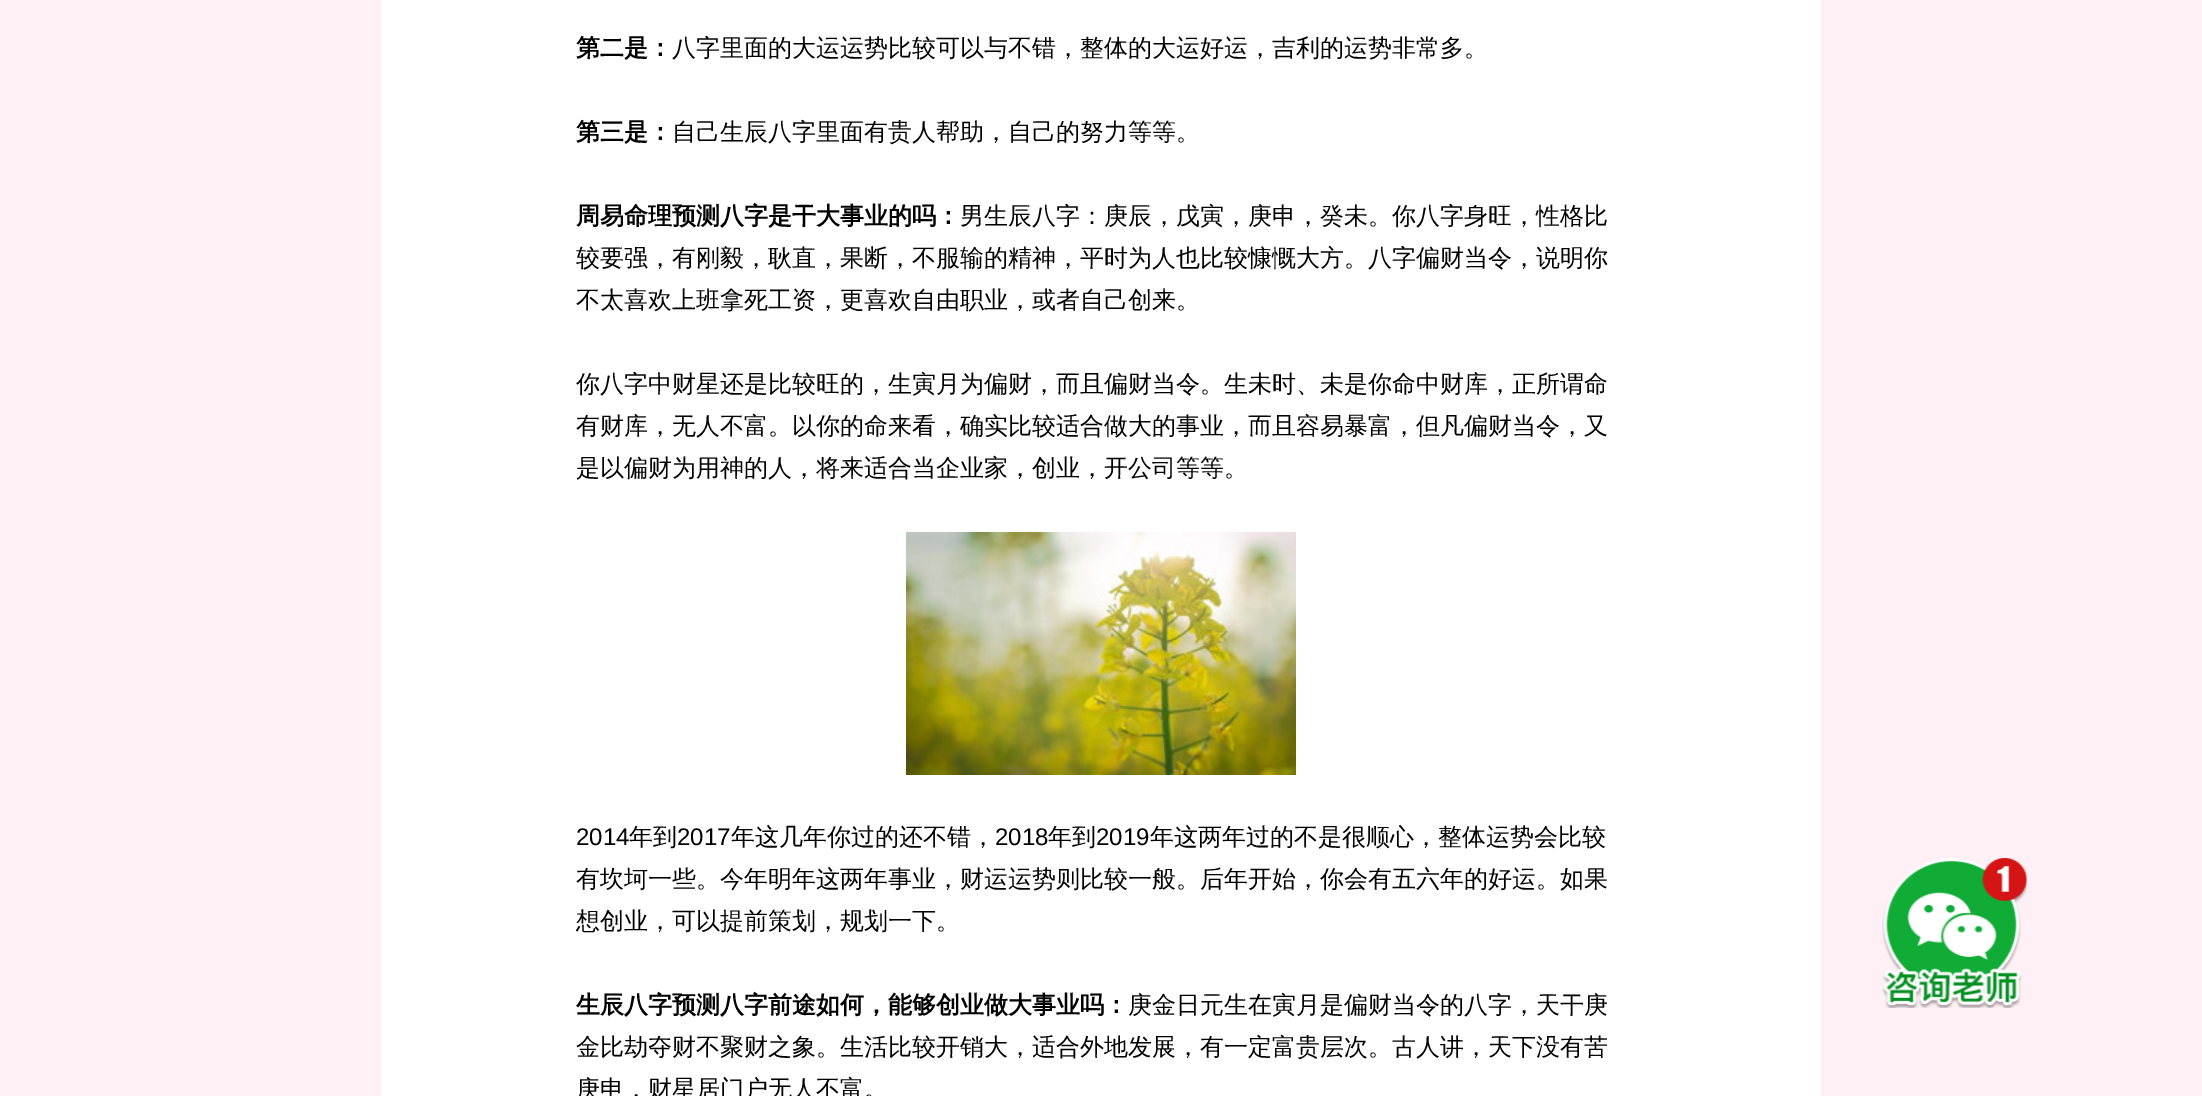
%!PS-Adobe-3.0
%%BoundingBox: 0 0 2202 1096
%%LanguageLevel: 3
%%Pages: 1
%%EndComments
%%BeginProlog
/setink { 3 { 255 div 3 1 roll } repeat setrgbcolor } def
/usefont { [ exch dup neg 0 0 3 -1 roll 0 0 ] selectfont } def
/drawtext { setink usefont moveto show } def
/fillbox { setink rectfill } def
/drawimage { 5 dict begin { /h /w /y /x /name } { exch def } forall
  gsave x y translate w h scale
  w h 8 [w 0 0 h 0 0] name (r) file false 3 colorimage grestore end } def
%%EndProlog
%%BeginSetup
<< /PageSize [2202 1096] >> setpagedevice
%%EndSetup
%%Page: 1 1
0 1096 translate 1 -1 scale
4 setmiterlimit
0 0 2202 1096 255 240 245 fillbox
381 0 1440 1096 255 255 255 fillbox
(第二是：) 576 56 /WenQuanYiZenHei-Bold 24 0 0 0 drawtext
(八字里面的大运运势比较可以与不错，整体的大运好运，吉利的运势非常多。) 672 56 /WenQuanYiZenHei-Medium 24 0 0 0 drawtext
(第三是：) 576 140 /WenQuanYiZenHei-Bold 24 0 0 0 drawtext
(自己生辰八字里面有贵人帮助，自己的努力等等。) 672 140 /WenQuanYiZenHei-Medium 24 0 0 0 drawtext
(周易命理预测八字是干大事业的吗：) 576 224 /WenQuanYiZenHei-Bold 24 0 0 0 drawtext
(男生辰八字：庚辰，戊寅，庚申，癸未。你八字身旺，性格比) 960 224 /WenQuanYiZenHei-Medium 24 0 0 0 drawtext
(较要强，有刚毅，耿直，果断，不服输的精神，平时为人也比较慷慨大方。八字偏财当令，说明你) 576 266 /WenQuanYiZenHei-Medium 24 0 0 0 drawtext
(不太喜欢上班拿死工资，更喜欢自由职业，或者自己创来。) 576 308 /WenQuanYiZenHei-Medium 24 0 0 0 drawtext
(你八字中财星还是比较旺的，生寅月为偏财，而且偏财当令。生未时、未是你命中财库，正所谓命) 576 392 /WenQuanYiZenHei-Medium 24 0 0 0 drawtext
(有财库，无人不富。以你的命来看，确实比较适合做大的事业，而且容易暴富，但凡偏财当令，又) 576 434 /WenQuanYiZenHei-Medium 24 0 0 0 drawtext
(是以偏财为用神的人，将来适合当企业家，创业，开公司等等。) 576 476 /WenQuanYiZenHei-Medium 24 0 0 0 drawtext
(assets/img1.rgb) 906 532 390 243 drawimage
(2014) 576 845 /LiberationSans-Regular 24 0 0 0 drawtext
(年到) 629 845 /WenQuanYiZenHei-Medium 24 0 0 0 drawtext
(2017) 677 845 /LiberationSans-Regular 24 0 0 0 drawtext
(年这几年你过的还不错，) 731 845 /WenQuanYiZenHei-Medium 24 0 0 0 drawtext
(2018) 995 845 /LiberationSans-Regular 24 0 0 0 drawtext
(年到) 1048 845 /WenQuanYiZenHei-Medium 24 0 0 0 drawtext
(2019) 1096 845 /LiberationSans-Regular 24 0 0 0 drawtext
(年这两年过的不是很顺心，整体运势会比较) 1150 845 /WenQuanYiZenHei-Medium 24 0 0 0 drawtext
(有坎坷一些。今年明年这两年事业，财运运势则比较一般。后年开始，你会有五六年的好运。如果) 576 887 /WenQuanYiZenHei-Medium 24 0 0 0 drawtext
(想创业，可以提前策划，规划一下。) 576 929 /WenQuanYiZenHei-Medium 24 0 0 0 drawtext
(生辰八字预测八字前途如何，能够创业做大事业吗：) 576 1013 /WenQuanYiZenHei-Bold 24 0 0 0 drawtext
(庚金日元生在寅月是偏财当令的八字，天干庚) 1128 1013 /WenQuanYiZenHei-Medium 24 0 0 0 drawtext
(金比劫夺财不聚财之象。生活比较开销大，适合外地发展，有一定富贵层次。古人讲，天下没有苦) 576 1055 /WenQuanYiZenHei-Medium 24 0 0 0 drawtext
(庚申，财星居门户无人不富。) 576 1097 /WenQuanYiZenHei-Medium 24 0 0 0 drawtext
(assets/img2.rgb) 1882 858 145 150 drawimage
showpage
%%EOF
